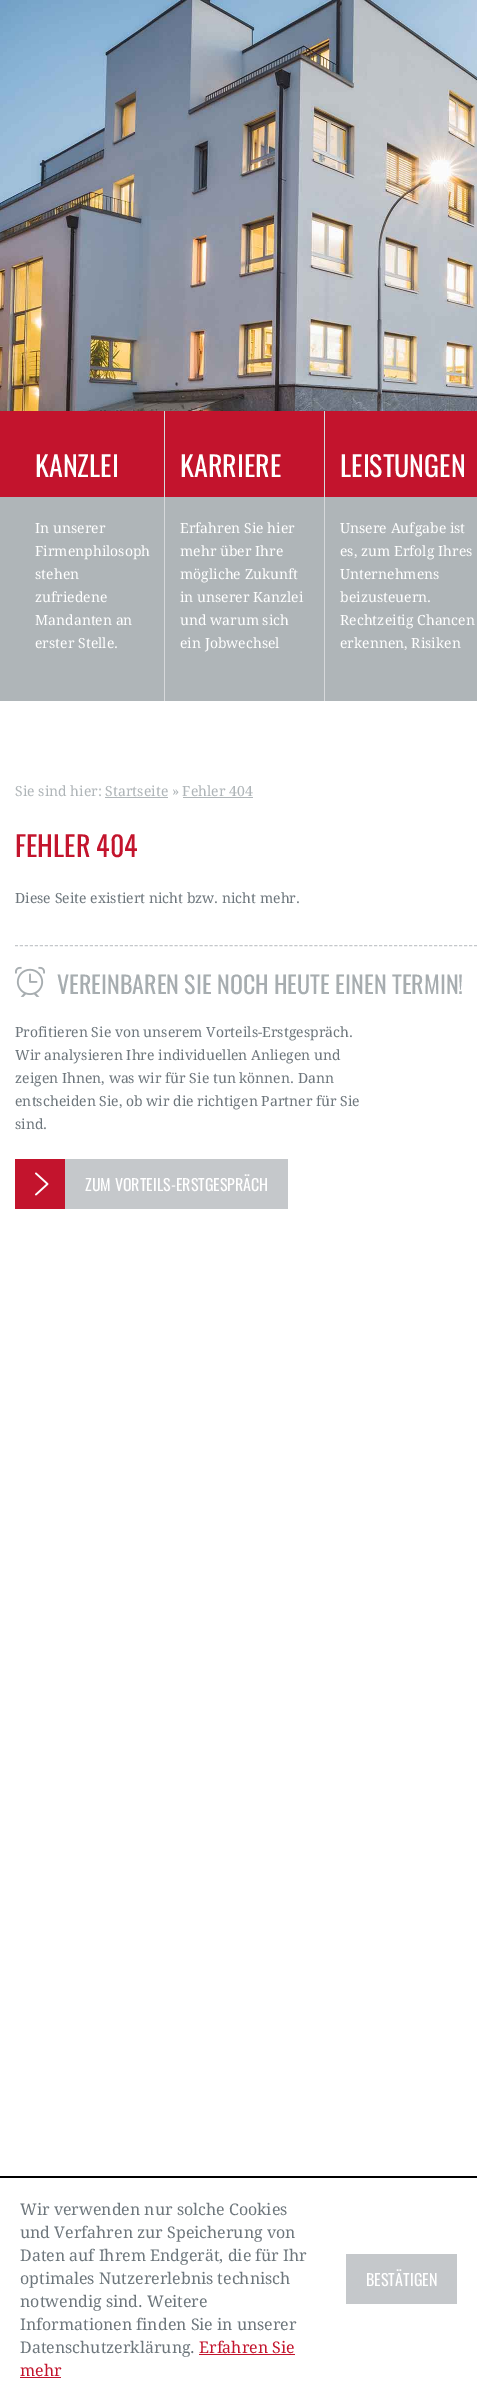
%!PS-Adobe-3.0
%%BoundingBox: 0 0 477 2402
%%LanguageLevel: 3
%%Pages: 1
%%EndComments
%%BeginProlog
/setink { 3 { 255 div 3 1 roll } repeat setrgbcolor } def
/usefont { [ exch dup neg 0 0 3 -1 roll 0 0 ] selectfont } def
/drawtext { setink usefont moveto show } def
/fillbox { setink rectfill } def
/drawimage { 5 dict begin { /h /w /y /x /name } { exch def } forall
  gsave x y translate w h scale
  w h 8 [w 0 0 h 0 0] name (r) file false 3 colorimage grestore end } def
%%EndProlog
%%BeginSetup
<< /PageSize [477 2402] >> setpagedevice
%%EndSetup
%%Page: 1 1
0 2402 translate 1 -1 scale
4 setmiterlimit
0 0 477 2402 255 255 255 fillbox
(assets/img1.rgb) 0 0 477 411 drawimage
0 411 164 86 195 20 45 fillbox
(KANZLEI) 35 477 /Oswald-Regular 28 255 255 255 drawtext
0 497 164 204 175 181 184 fillbox
164 411 1 290 215 217 219 fillbox
(In unserer) 35 533 /DroidSerif-Regular 14 255 255 255 drawtext
(Firmenphilosoph) 35 556 /DroidSerif-Regular 14 255 255 255 drawtext
(stehen) 35 579 /DroidSerif-Regular 14 255 255 255 drawtext
(zufriedene) 35 602 /DroidSerif-Regular 14 255 255 255 drawtext
(Mandanten an) 35 625 /DroidSerif-Regular 14 255 255 255 drawtext
(erster Stelle.) 35 648 /DroidSerif-Regular 14 255 255 255 drawtext
165 411 159 86 195 20 45 fillbox
(KARRIERE) 180 477 /Oswald-Regular 28 255 255 255 drawtext
165 497 159 204 175 181 184 fillbox
324 411 1 290 215 217 219 fillbox
(Erfahren Sie hier) 180 533 /DroidSerif-Regular 14 255 255 255 drawtext
(mehr über Ihre) 180 556 /DroidSerif-Regular 14 255 255 255 drawtext
(mögliche Zukunft) 180 579 /DroidSerif-Regular 14 255 255 255 drawtext
(in unserer Kanzlei) 180 602 /DroidSerif-Regular 14 255 255 255 drawtext
(und warum sich) 180 625 /DroidSerif-Regular 14 255 255 255 drawtext
(ein Jobwechsel) 180 648 /DroidSerif-Regular 14 255 255 255 drawtext
325 411 152 86 195 20 45 fillbox
(LEISTUNGEN) 340 477 /Oswald-Regular 28 255 255 255 drawtext
325 497 152 204 175 181 184 fillbox
(Unsere Aufgabe ist) 340 533 /DroidSerif-Regular 14 255 255 255 drawtext
(es, zum Erfolg Ihres) 340 556 /DroidSerif-Regular 14 255 255 255 drawtext
(Unternehmens) 340 579 /DroidSerif-Regular 14 255 255 255 drawtext
(beizusteuern.) 340 602 /DroidSerif-Regular 14 255 255 255 drawtext
(Rechtzeitig Chancen) 340 625 /DroidSerif-Regular 14 255 255 255 drawtext
(erkennen, Risiken) 340 648 /DroidSerif-Regular 14 255 255 255 drawtext
(Sie sind hier: Startseite » Fehler 404) 15 796 /DroidSerif-Regular 14 175 181 184 drawtext
105 797 63 1 175 181 184 fillbox
183 797 70 1 175 181 184 fillbox
(FEHLER 404) 15 857 /Oswald-Regular 28 195 20 45 drawtext
(Diese Seite existiert nicht bzw. nicht mehr.) 15 903 /DroidSerif-Regular 14 109 118 124 drawtext
197 200 203 setink
[3 1.99] 0 setdash
15 945.5 moveto 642 945.5 lineto stroke
(assets/img2.rgb) 15 966 30 31 drawimage
(VEREINBAREN SIE NOCH HEUTE EINEN TERMIN!) 57 994 /Oswald-Regular 24 167 173 176 drawtext
(Profitieren Sie von unserem Vorteils-Erstgespräch.) 15 1037 /DroidSerif-Regular 14 109 118 124 drawtext
(Wir analysieren Ihre individuellen Anliegen und) 15 1060 /DroidSerif-Regular 14 109 118 124 drawtext
(zeigen Ihnen, was wir für Sie tun können. Dann) 15 1083 /DroidSerif-Regular 14 109 118 124 drawtext
(entscheiden Sie, ob wir die richtigen Partner für Sie) 15 1106 /DroidSerif-Regular 14 109 118 124 drawtext
(sind.) 15 1129 /DroidSerif-Regular 14 109 118 124 drawtext
15 1159 50 50 195 20 45 fillbox
(assets/img3.rgb) 35 1172 14 24 drawimage
65 1159 223 50 197 200 203 fillbox
(ZUM VORTEILS-ERSTGESPRÄCH) 85 1191 /Oswald-Regular 16 255 255 255 drawtext
0 2176 477 2 0 0 0 fillbox
(Wir verwenden nur solche Cookies) 20 2215 /DroidSerif-Regular 16 109 118 124 drawtext
(und Verfahren zur Speicherung von) 20 2238 /DroidSerif-Regular 16 109 118 124 drawtext
(Daten auf Ihrem Endgerät, die für Ihr) 20 2261 /DroidSerif-Regular 16 109 118 124 drawtext
(optimales Nutzererlebnis technisch) 20 2284 /DroidSerif-Regular 16 109 118 124 drawtext
(notwendig sind. Weitere) 20 2307 /DroidSerif-Regular 16 109 118 124 drawtext
(Informationen finden Sie in unserer) 20 2330 /DroidSerif-Regular 16 109 118 124 drawtext
(Datenschutzerklärung.) 20 2353 /DroidSerif-Regular 16 109 118 124 drawtext
(Erfahren Sie) 199 2353 /DroidSerif-Regular 16 195 20 45 drawtext
199 2354 96 1 195 20 45 fillbox
(mehr) 20 2376 /DroidSerif-Regular 16 195 20 45 drawtext
20 2377 41 1 195 20 45 fillbox
346 2254 111 50 197 200 203 fillbox
(BESTÄTIGEN) 366 2286 /Oswald-Regular 16 255 255 255 drawtext
showpage
%%EOF
